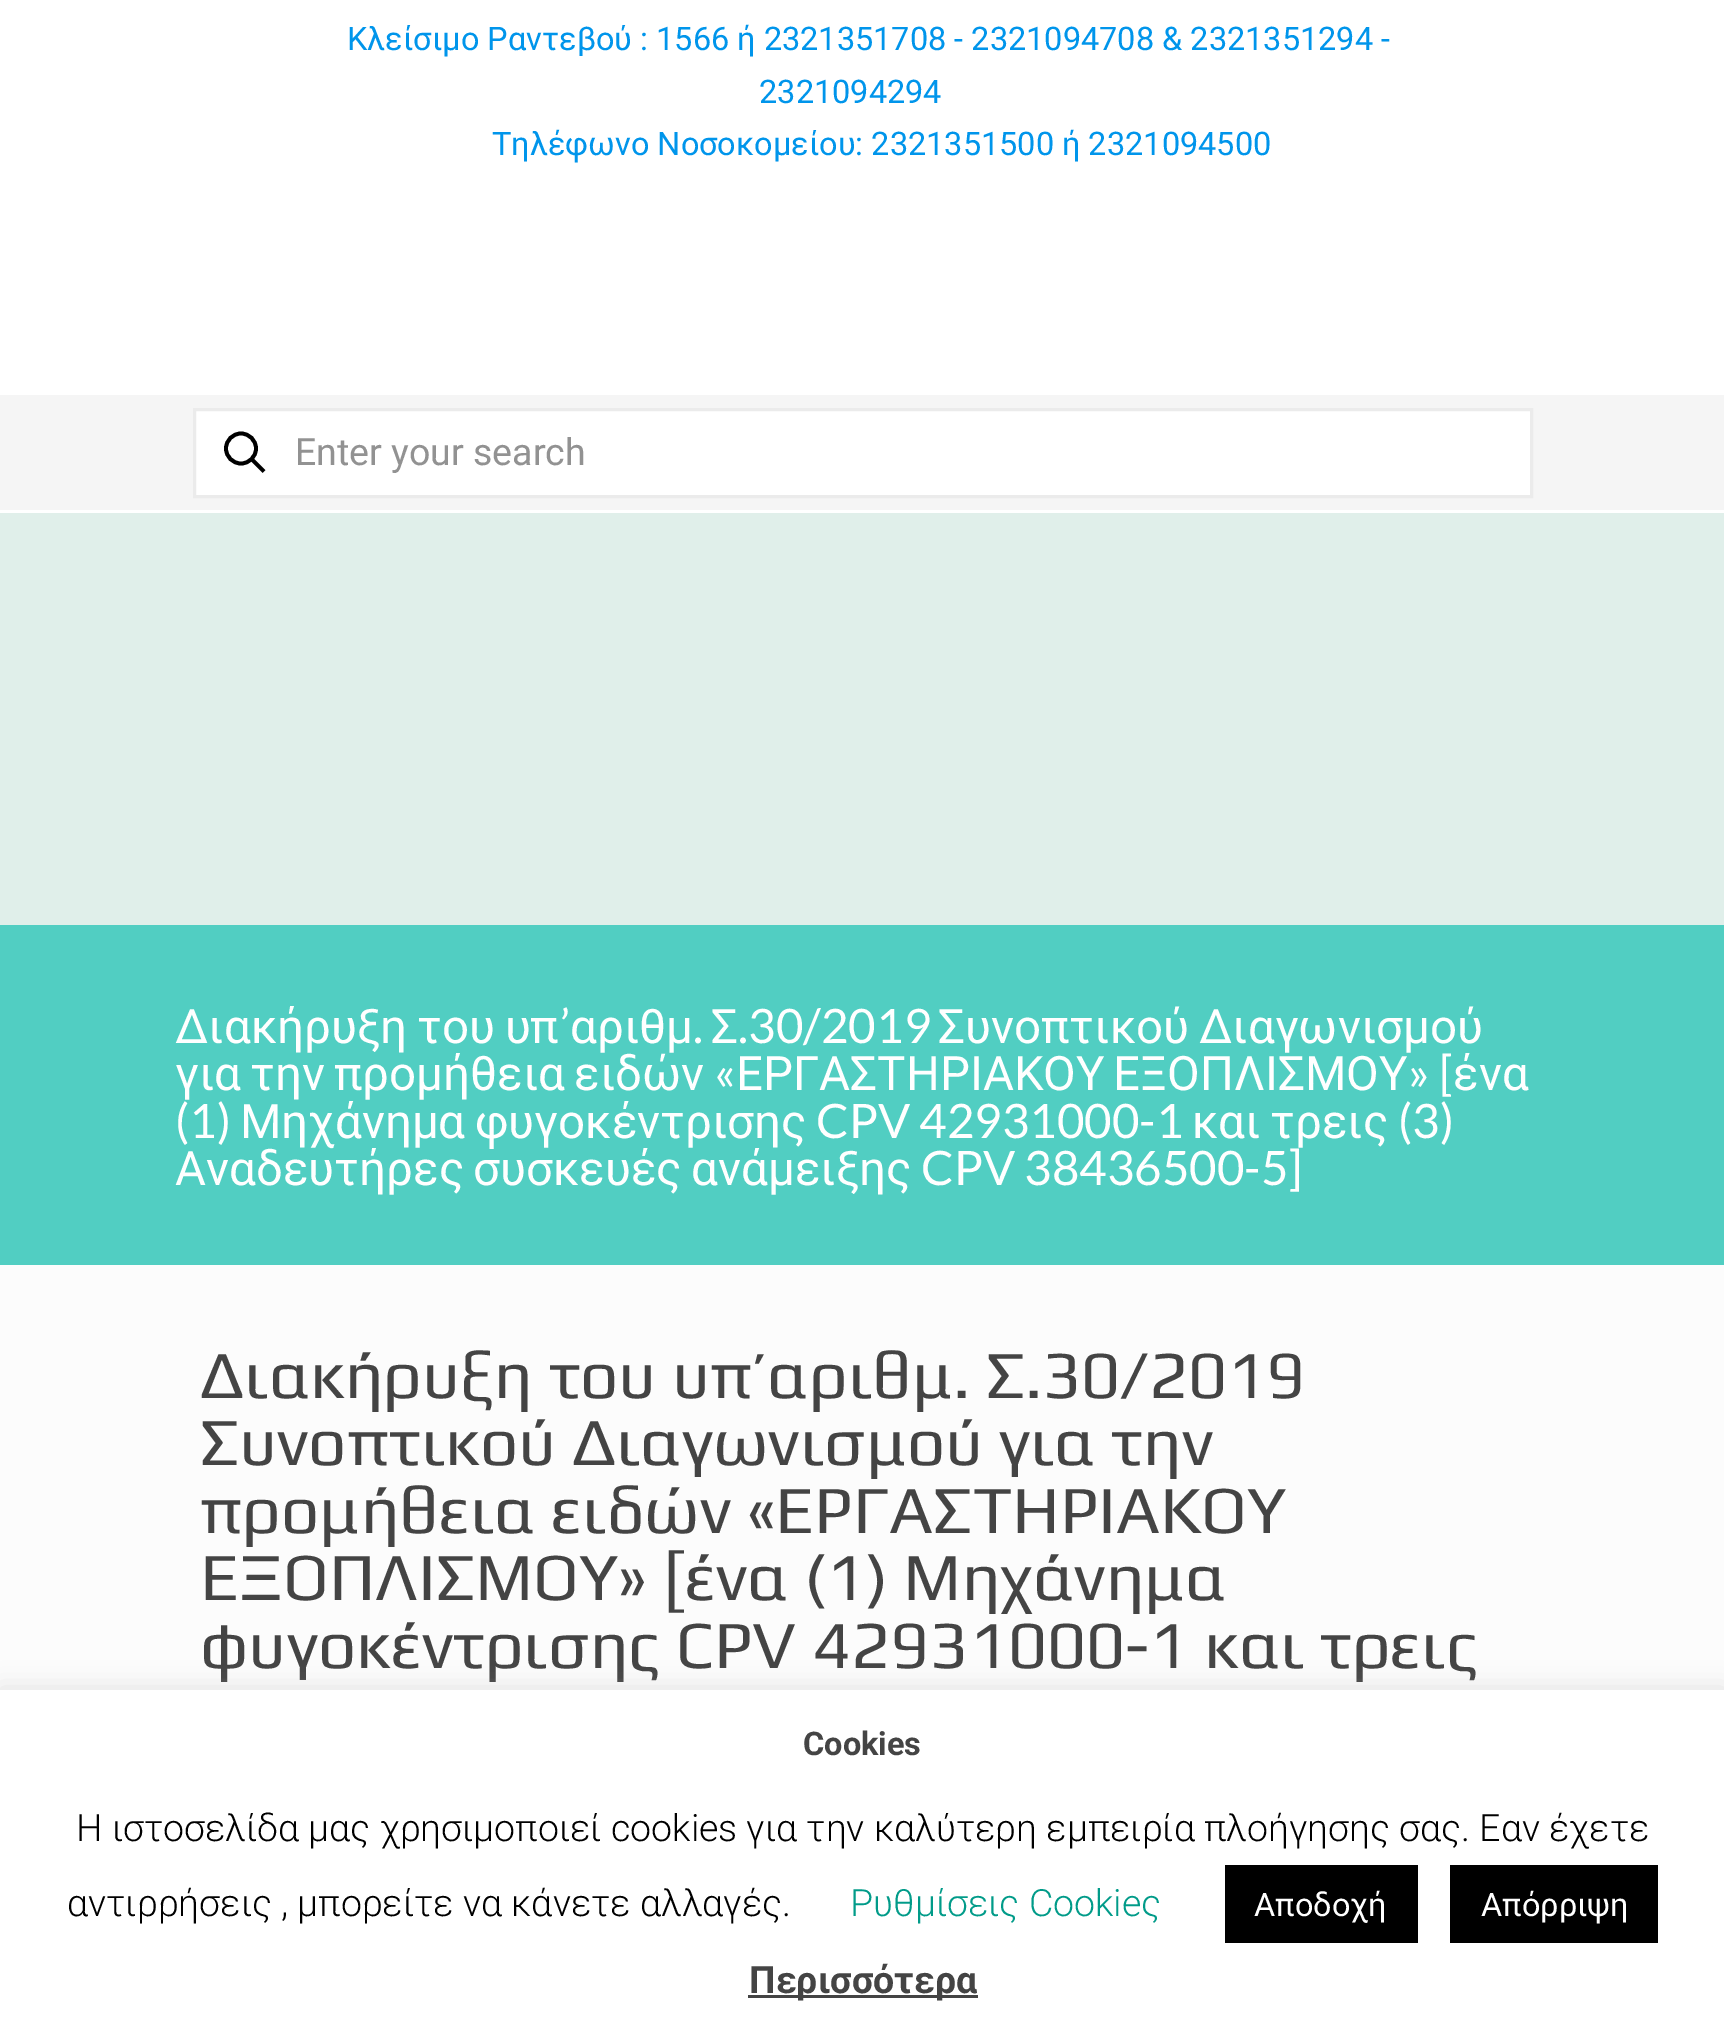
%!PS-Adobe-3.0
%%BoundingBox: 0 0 1724 2034
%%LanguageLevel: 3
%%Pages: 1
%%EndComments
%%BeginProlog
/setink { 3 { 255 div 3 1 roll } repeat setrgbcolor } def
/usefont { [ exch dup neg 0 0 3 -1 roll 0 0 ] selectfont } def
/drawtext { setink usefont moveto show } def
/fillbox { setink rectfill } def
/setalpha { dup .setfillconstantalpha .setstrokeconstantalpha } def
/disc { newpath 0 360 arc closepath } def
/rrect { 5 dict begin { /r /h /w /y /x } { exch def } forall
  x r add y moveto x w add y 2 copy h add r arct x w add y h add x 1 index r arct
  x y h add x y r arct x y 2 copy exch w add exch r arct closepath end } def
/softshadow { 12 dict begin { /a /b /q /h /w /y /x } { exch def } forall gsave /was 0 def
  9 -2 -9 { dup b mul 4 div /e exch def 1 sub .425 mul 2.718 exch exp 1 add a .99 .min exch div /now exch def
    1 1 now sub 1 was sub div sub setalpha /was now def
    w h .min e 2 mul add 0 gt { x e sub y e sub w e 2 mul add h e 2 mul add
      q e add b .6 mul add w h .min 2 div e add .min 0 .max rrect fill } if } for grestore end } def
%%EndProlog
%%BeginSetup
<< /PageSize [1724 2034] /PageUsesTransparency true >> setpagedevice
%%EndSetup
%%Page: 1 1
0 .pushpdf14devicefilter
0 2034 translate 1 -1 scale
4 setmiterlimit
0 0 1724 2034 252 252 252 fillbox
0 513 1724 412 224 239 234 fillbox
0 0 1724 513 255 255 255 fillbox
(Κλείσιμο Ραντεβού : 1566 ή 2321351708 - 2321094708 & 2321351294 -) 347 50 /Roboto-Regular 32.5 0 149 235 drawtext
(2321094294) 759 103 /Roboto-Regular 32.5 0 149 235 drawtext
(Τηλέφωνο Νοσοκομείου: 2321351500 ή 2321094500) 492 155 /Roboto-Regular 32.5 0 149 235 drawtext
0 395 1724 115 245 245 245 fillbox
255 255 255 setink
194.5 409.5 moveto 1531.5 409.5 lineto 1531.5 496.5 lineto 194.5 496.5 lineto closepath gsave fill grestore
235 235 235 setink
3 setlinewidth
stroke
0 0 0 setink
3.8 setlinewidth
241 448.5 15 disc stroke
251.5 459 moveto 264 471.5 lineto stroke
(Enter your search) 295 465 /Roboto-Regular 37.5 146 146 146 drawtext
0 925 1724 340 81 206 194 fillbox
/Roboto-Regular 47.5 usefont
255 255 255 setink
175 1043 moveto -2 0 32 (Διακήρυξη του υπ) widthshow
(’) 560 1043 /Lato-Regular 47.5 255 255 255 drawtext
(αριθμ) 570 1043 /Roboto-Regular 47.5 255 255 255 drawtext
(.) 693 1043 /Lato-Regular 47.5 255 255 255 drawtext
(Σ) 711 1043 /Roboto-Regular 47.5 255 255 255 drawtext
(.30/2019) 738 1043 /Lato-Regular 47.5 255 255 255 drawtext
/Roboto-Regular 47.5 usefont
938 1043 moveto -2 0 32 (Συνοπτικού Διαγωνισμού) widthshow
(για) 175 1090 /Roboto-Regular 47.5 255 255 255 drawtext
(την) 250 1090 /Roboto-Regular 47.5 255 255 255 drawtext
(προμήθεια) 334 1090 /Roboto-Regular 47.5 255 255 255 drawtext
(ειδών) 574 1090 /Roboto-Regular 47.5 255 255 255 drawtext
(«) 714 1090 /Lato-Regular 47.5 255 255 255 drawtext
(ΕΡΓΑΣΤΗΡΙΑΚΟΥ) 736 1090 /Roboto-Regular 47.5 255 255 255 drawtext
(ΕΞΟΠΛΙΣΜΟΥ) 1113 1090 /Roboto-Regular 47.5 255 255 255 drawtext
(» [) 1408 1090 /Lato-Regular 47.5 255 255 255 drawtext
(ένα) 1453 1090 /Roboto-Regular 47.5 255 255 255 drawtext
(\(1\)) 175 1138 /Lato-Regular 47.5 255 255 255 drawtext
(Μηχάνημα) 240 1138 /Roboto-Regular 47.5 255 255 255 drawtext
(φυγοκέντρισης) 475 1138 /Roboto-Regular 47.5 255 255 255 drawtext
(CPV 42931000-1) 816 1138 /Lato-Regular 47.5 255 255 255 drawtext
(και) 1192 1138 /Roboto-Regular 47.5 255 255 255 drawtext
(τρεις) 1270 1138 /Roboto-Regular 47.5 255 255 255 drawtext
(\(3\)) 1398 1138 /Lato-Regular 47.5 255 255 255 drawtext
(Αναδευτήρες) 175 1185 /Roboto-Regular 47.5 255 255 255 drawtext
(συσκευές) 473 1185 /Roboto-Regular 47.5 255 255 255 drawtext
(ανάμειξης) 691 1185 /Roboto-Regular 47.5 255 255 255 drawtext
(CPV 38436500-5]) 921 1185 /Lato-Regular 47.5 255 255 255 drawtext
(Διακήρυξη του υπ’αριθμ. Σ.30/2019) 200 1398 /Play-Regular 67.5 68 68 68 drawtext
(Συνοπτικού Διαγωνισμού για την) 200 1465 /Play-Regular 67.5 68 68 68 drawtext
(προμήθεια ειδών «ΕΡΓΑΣΤΗΡΙΑΚΟΥ) 200 1533 /Play-Regular 67.5 68 68 68 drawtext
(ΕΞΟΠΛΙΣΜΟΥ» [ένα \(1\) Μηχάνημα) 200 1600 /Play-Regular 67.5 68 68 68 drawtext
(φυγοκέντρισης CPV 42931000-1 και τρεις) 200 1668 /Play-Regular 67.5 68 68 68 drawtext
172 171 171 setink
0 1688 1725 345 0 12.5 0.3 softshadow
0 1690 1724 344 255 255 255 fillbox
(Cookies) 803 1755 /Roboto-Bold 32.5 68 68 68 drawtext
(Η ιστοσελίδα μας χρησιμοποιεί cookies για την καλύτερη εμπειρία πλοήγησης σας. Εαν έχετε) 76 1841 /Roboto-Light 37.5 0 0 0 drawtext
(αντιρρήσεις , μπορείτε να κάνετε αλλαγές.) 67 1916 /Roboto-Light 37.5 0 0 0 drawtext
(Ρυθμίσεις Cookieς) 850 1916 /Roboto-Light 37.5 1 155 137 drawtext
1225 1865 193 78 0 0 0 fillbox
(Αποδοχή) 1254 1916 /Roboto-Regular 32.5 255 255 255 drawtext
1450 1865 208 78 0 0 0 fillbox
(Απόρριψη) 1481 1916 /Roboto-Regular 32.5 255 255 255 drawtext
748 1995 230 3 68 68 68 fillbox
(Περισσότερα) 749 1993 /Roboto-Bold 37.5 68 68 68 drawtext
.poppdf14devicefilter showpage
%%EOF
